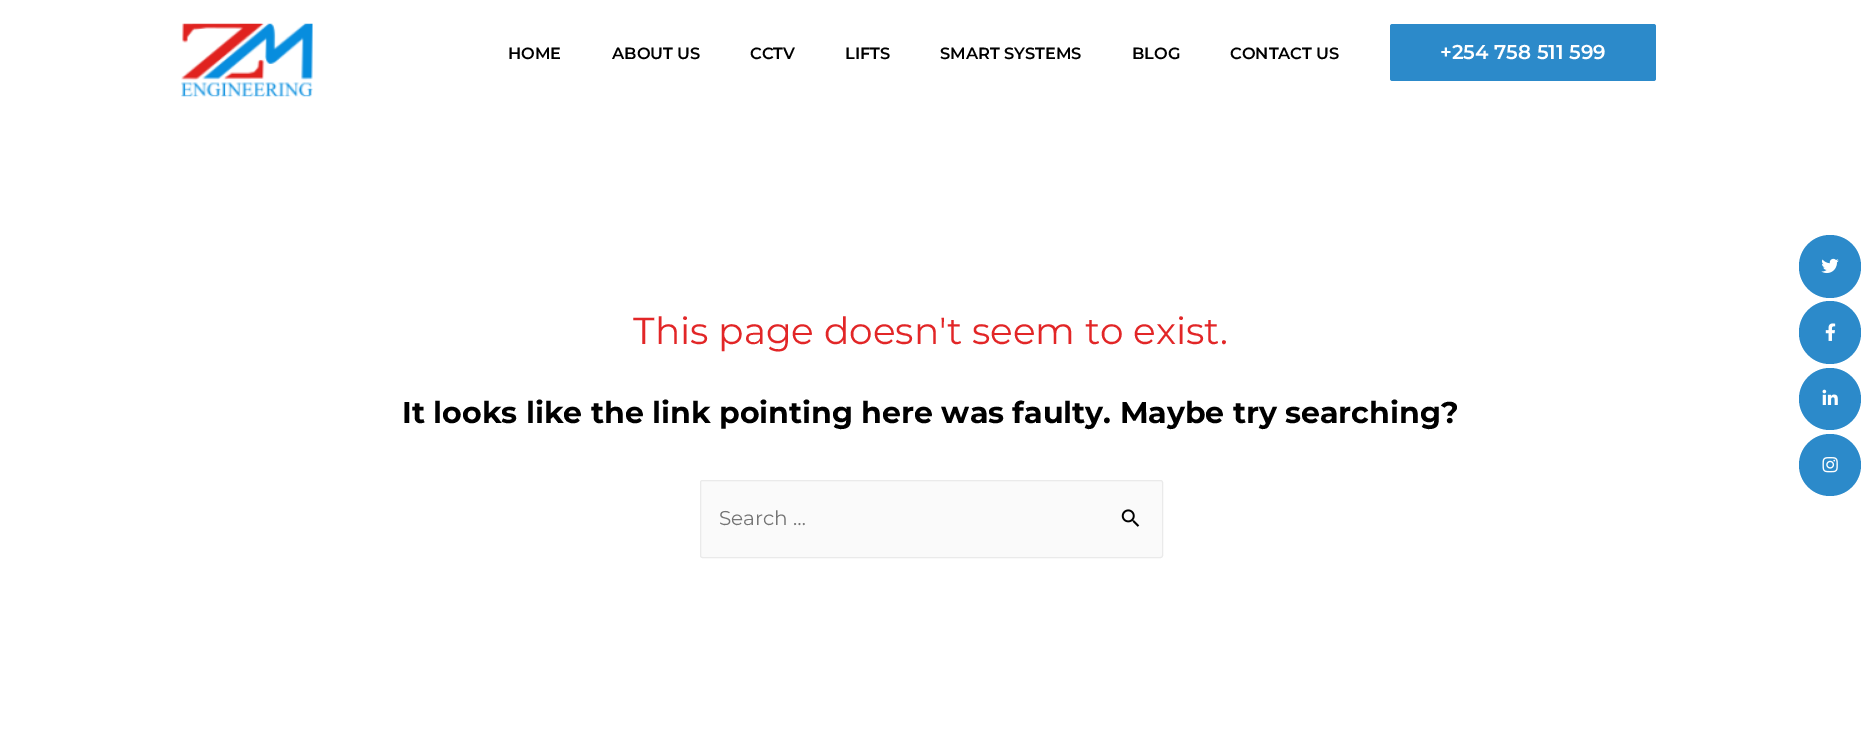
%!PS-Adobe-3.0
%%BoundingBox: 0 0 1861 733
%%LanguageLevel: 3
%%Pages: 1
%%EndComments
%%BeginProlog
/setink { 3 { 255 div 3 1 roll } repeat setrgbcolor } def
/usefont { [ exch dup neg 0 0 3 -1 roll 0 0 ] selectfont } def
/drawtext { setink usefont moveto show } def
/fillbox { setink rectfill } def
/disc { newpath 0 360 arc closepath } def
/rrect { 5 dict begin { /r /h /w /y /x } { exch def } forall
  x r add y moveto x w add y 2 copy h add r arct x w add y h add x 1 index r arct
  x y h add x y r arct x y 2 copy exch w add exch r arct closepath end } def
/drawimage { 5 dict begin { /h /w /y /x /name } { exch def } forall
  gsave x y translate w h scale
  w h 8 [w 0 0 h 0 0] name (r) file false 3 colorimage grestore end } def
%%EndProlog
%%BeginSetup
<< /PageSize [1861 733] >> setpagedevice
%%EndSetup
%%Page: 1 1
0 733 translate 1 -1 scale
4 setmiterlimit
0 0 1861 733 255 255 255 fillbox
(assets/img1.rgb) 181 23 132 74 drawimage
(HOME) 508 59 /Montserrat-SemiBold 16.25 0 0 0 drawtext
(ABOUT US) 612 59 /Montserrat-SemiBold 16.25 0 0 0 drawtext
(CCTV) 750 59 /Montserrat-SemiBold 16.25 0 0 0 drawtext
(LIFTS) 845 59 /Montserrat-SemiBold 16.25 0 0 0 drawtext
(SMART SYSTEMS) 940 59 /Montserrat-SemiBold 16.25 0 0 0 drawtext
(BLOG) 1132 59 /Montserrat-SemiBold 16.25 0 0 0 drawtext
(CONTACT US) 1230 59 /Montserrat-SemiBold 16.25 0 0 0 drawtext
44 138 202 setink
1390 24 266 57 2.5 rrect fill
(+254 758 511 599) 1440 59 /Montserrat-SemiBold 20 255 255 255 drawtext
(This page doesn't seem to exist.) 633 344 /Montserrat-Regular 37.5 226 38 39 drawtext
(It looks like the link pointing here was faulty. Maybe try searching?) 402 423 /Montserrat-Bold 30 0 0 0 drawtext
250 250 250 setink
700.5 480.5 462 77 2 rrect gsave fill grestore
234 234 234 setink
stroke
(Search …) 719 525 /Montserrat-Regular 20 117 117 117 drawtext
(assets/img2.rgb) 1121 509 19 18 drawimage
44 138 202 setink
1799 235 62 63 31 rrect fill
(assets/img3.rgb) 1821 258 18 16 drawimage
1799 301 62 63 31 rrect fill
(assets/img4.rgb) 1825 323 11 18 drawimage
1830 399 31 disc fill
(assets/img5.rgb) 1822 389 16 16 drawimage
1830 465 31 disc fill
(assets/img6.rgb) 1822 457 16 16 drawimage
showpage
%%EOF
